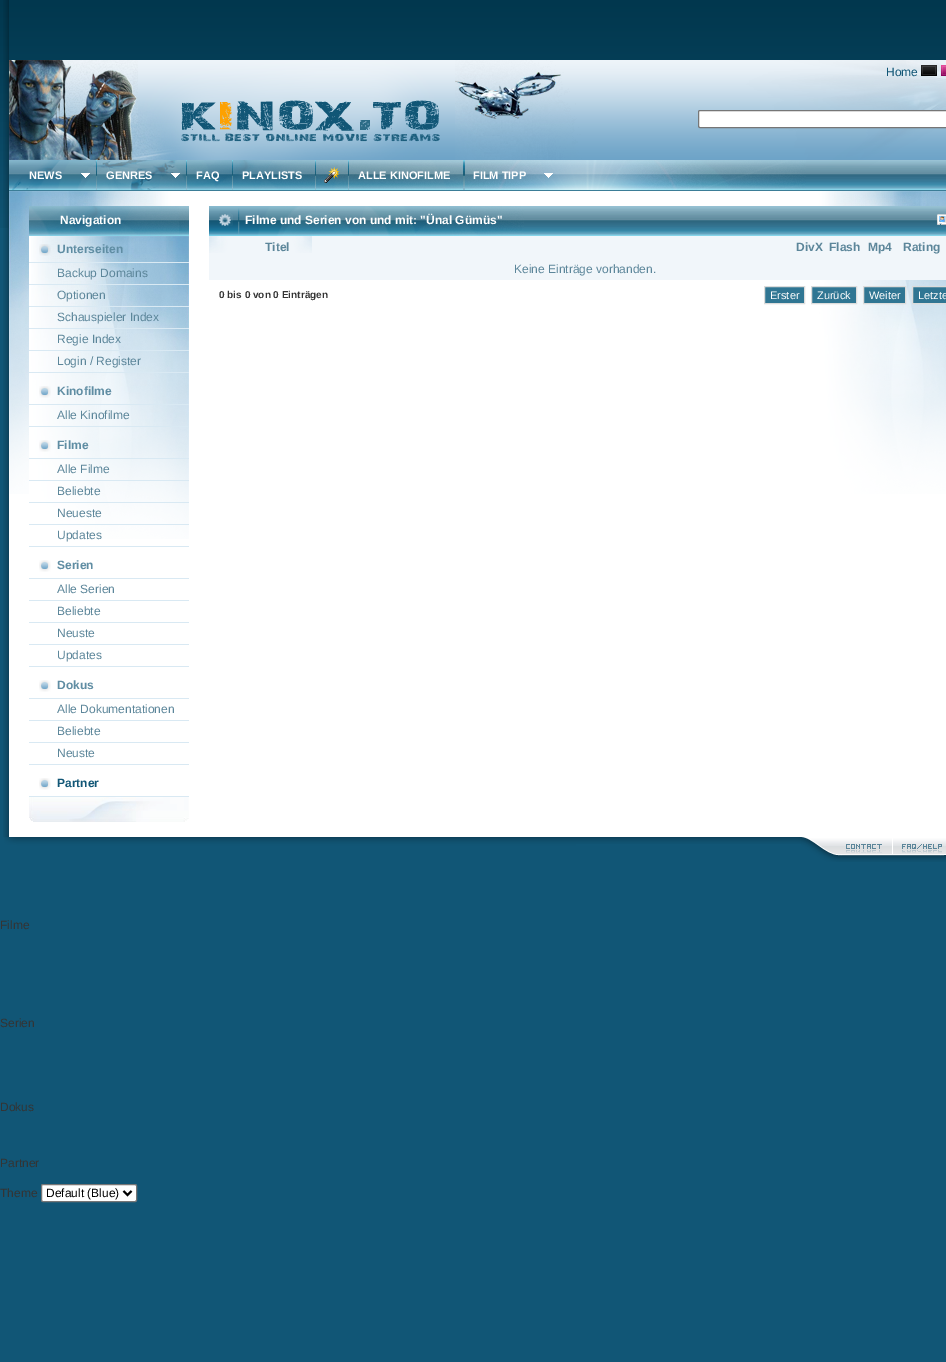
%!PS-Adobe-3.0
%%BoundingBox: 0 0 946 1362
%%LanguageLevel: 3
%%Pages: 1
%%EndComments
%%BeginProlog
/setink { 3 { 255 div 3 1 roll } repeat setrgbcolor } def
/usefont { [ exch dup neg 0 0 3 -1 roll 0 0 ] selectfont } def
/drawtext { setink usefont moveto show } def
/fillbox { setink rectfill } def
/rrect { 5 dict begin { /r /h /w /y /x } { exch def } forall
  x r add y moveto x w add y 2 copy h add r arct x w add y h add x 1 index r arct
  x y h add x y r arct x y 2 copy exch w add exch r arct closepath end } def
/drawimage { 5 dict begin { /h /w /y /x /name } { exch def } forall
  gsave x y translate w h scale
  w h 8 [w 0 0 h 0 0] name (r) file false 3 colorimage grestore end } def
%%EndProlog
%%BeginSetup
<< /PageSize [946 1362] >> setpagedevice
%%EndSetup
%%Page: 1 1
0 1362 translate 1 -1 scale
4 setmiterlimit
0 0 946 1362 17 86 118 fillbox
(assets/img1.rgb) 0 0 946 228 drawimage
(assets/img2.rgb) 3 0 6 837 drawimage
(assets/img3.rgb) 9 60 937 100 drawimage
(Home) 886 76 /LiberationSans-Regular 12 17 86 118 drawtext
(assets/img4.rgb) 921 65 16 11 drawimage
(assets/img5.rgb) 941 65 5 11 drawimage
255 255 255 setink
698.5 110.5 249 17 1.5 rrect gsave fill grestore
118 118 118 setink
stroke
(assets/img6.rgb) 9 160 937 30 drawimage
9 190 937 1 59 125 151 fillbox
(NEWS) 29 179 /LiberationSans-Bold 11 255 255 255 drawtext
(assets/img7.rgb) 81 173 9 5 drawimage
(assets/img8.rgb) 96 160 1 30 drawimage
(GENRES) 106 179 /LiberationSans-Bold 11 255 255 255 drawtext
(assets/img9.rgb) 171 173 9 5 drawimage
(assets/img8.rgb) 186 160 1 30 drawimage
(FAQ) 196 179 /LiberationSans-Bold 11 255 255 255 drawtext
(assets/img8.rgb) 232 160 1 30 drawimage
(PLAYLISTS) 242 179 /LiberationSans-Bold 11 255 255 255 drawtext
(assets/img8.rgb) 315 160 1 30 drawimage
(assets/img10.rgb) 324 167 15 16 drawimage
(assets/img8.rgb) 348 160 1 30 drawimage
(ALLE KINOFILME) 358 179 /LiberationSans-Bold 11 255 255 255 drawtext
(assets/img11.rgb) 463 160 2 30 drawimage
(FILM TIPP) 473 179 /LiberationSans-Bold 11 255 255 255 drawtext
(assets/img12.rgb) 544 173 9 5 drawimage
9 191 937 646 255 255 255 fillbox
(assets/img13.rgb) 9 191 937 303 drawimage
29 236 138 258 255 255 255 fillbox
(assets/img14.rgb) 31 236 158 303 drawimage
(assets/img15.rgb) 29 206 160 30 drawimage
(Navigation) 60 224 /LiberationSans-Bold 12 255 255 255 drawtext
(assets/img16.rgb) 39 244 12 12 drawimage
29 262 160 1 217 233 243 fillbox
(Unterseiten) 57 253 /LiberationSans-Bold 12 95 141 163 drawtext
29 284 160 1 217 233 243 fillbox
(Backup Domains) 57 277 /LiberationSans-Regular 12 92 134 154 drawtext
29 306 160 1 217 233 243 fillbox
(Optionen) 57 299 /LiberationSans-Regular 12 92 134 154 drawtext
29 328 160 1 217 233 243 fillbox
(Schauspieler Index) 57 321 /LiberationSans-Regular 12 92 134 154 drawtext
29 350 160 1 217 233 243 fillbox
(Regie Index) 57 343 /LiberationSans-Regular 12 92 134 154 drawtext
29 372 160 1 217 233 243 fillbox
(Login / Register) 57 365 /LiberationSans-Regular 12 92 134 154 drawtext
(assets/img17.rgb) 39 386 12 12 drawimage
29 404 160 1 217 233 243 fillbox
(Kinofilme) 57 395 /LiberationSans-Bold 12 95 141 163 drawtext
29 426 160 1 217 233 243 fillbox
(Alle Kinofilme) 57 419 /LiberationSans-Regular 12 92 134 154 drawtext
(assets/img18.rgb) 39 440 12 12 drawimage
29 458 160 1 217 233 243 fillbox
(Filme) 57 449 /LiberationSans-Bold 12 95 141 163 drawtext
29 480 160 1 217 233 243 fillbox
(Alle Filme) 57 473 /LiberationSans-Regular 12 92 134 154 drawtext
29 502 160 1 217 233 243 fillbox
(Beliebte) 57 495 /LiberationSans-Regular 12 92 134 154 drawtext
29 524 160 1 217 233 243 fillbox
(Neueste) 57 517 /LiberationSans-Regular 12 92 134 154 drawtext
29 546 160 1 217 233 243 fillbox
(Updates) 57 539 /LiberationSans-Regular 12 92 134 154 drawtext
(assets/img19.rgb) 39 560 12 12 drawimage
29 578 160 1 217 233 243 fillbox
(Serien) 57 569 /LiberationSans-Bold 12 95 141 163 drawtext
29 600 160 1 217 233 243 fillbox
(Alle Serien) 57 593 /LiberationSans-Regular 12 92 134 154 drawtext
29 622 160 1 217 233 243 fillbox
(Beliebte) 57 615 /LiberationSans-Regular 12 92 134 154 drawtext
29 644 160 1 217 233 243 fillbox
(Neuste) 57 637 /LiberationSans-Regular 12 92 134 154 drawtext
29 666 160 1 217 233 243 fillbox
(Updates) 57 659 /LiberationSans-Regular 12 92 134 154 drawtext
(assets/img19.rgb) 39 680 12 12 drawimage
29 698 160 1 217 233 243 fillbox
(Dokus) 57 689 /LiberationSans-Bold 12 95 141 163 drawtext
29 720 160 1 217 233 243 fillbox
(Alle Dokumentationen) 57 713 /LiberationSans-Regular 12 92 134 154 drawtext
29 742 160 1 217 233 243 fillbox
(Beliebte) 57 735 /LiberationSans-Regular 12 92 134 154 drawtext
29 764 160 1 217 233 243 fillbox
(Neuste) 57 757 /LiberationSans-Regular 12 92 134 154 drawtext
(assets/img19.rgb) 39 778 12 12 drawimage
29 796 160 1 217 233 243 fillbox
(Partner) 57 787 /LiberationSans-Bold 12 17 86 118 drawtext
(assets/img20.rgb) 29 797 160 25 drawimage
(assets/img21.rgb) 209 206 737 30 drawimage
(assets/img22.rgb) 219 213 14 13 drawimage
(assets/img23.rgb) 238 208 2 27 drawimage
(Filme und Serien von und mit: "Ünal Gümüs") 245 224 /LiberationSans-Bold 12 255 255 255 drawtext
(assets/img24.rgb) 937 214 9 11 drawimage
209 236 737 44 241 246 250 fillbox
(assets/img25.rgb) 209 236 103 17 drawimage
(Titel) 265 251 /LiberationSans-Bold 12 92 134 154 drawtext
(DivX) 796 251 /LiberationSans-Bold 12 92 134 154 drawtext
(Flash) 829 251 /LiberationSans-Bold 12 92 134 154 drawtext
(Mp4) 868 251 /LiberationSans-Bold 12 92 134 154 drawtext
(Rating) 903 251 /LiberationSans-Bold 12 92 134 154 drawtext
(Keine Einträge vorhanden.) 514 273 /LiberationSans-Regular 12 92 134 154 drawtext
(0 bis 0 von 0 Einträgen) 219 298 /LiberationSans-Bold 10 52 52 52 drawtext
48 118 147 setink
764.5 286.5 moveto 804.5 286.5 lineto 804.5 303.5 lineto 764.5 303.5 lineto closepath gsave fill grestore
220 220 219 setink
stroke
(Erster) 770 299 /LiberationSans-Regular 11 255 255 255 drawtext
48 118 147 setink
811.5 286.5 moveto 856.5 286.5 lineto 856.5 303.5 lineto 811.5 303.5 lineto closepath gsave fill grestore
220 220 219 setink
stroke
(Zurück) 817 299 /LiberationSans-Regular 11 255 255 255 drawtext
48 118 147 setink
863.5 286.5 moveto 905.5 286.5 lineto 905.5 303.5 lineto 863.5 303.5 lineto closepath gsave fill grestore
220 220 219 setink
stroke
(Weiter) 869 299 /LiberationSans-Regular 11 255 255 255 drawtext
48 118 147 setink
912.5 286.5 moveto 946.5 286.5 lineto 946.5 303.5 lineto 912.5 303.5 lineto closepath gsave fill grestore
220 220 219 setink
stroke
(Letzte) 918 299 /LiberationSans-Regular 11 255 255 255 drawtext
(assets/img26.rgb) 4 837 942 25 drawimage
(assets/img27.rgb) 846 844 36 9 drawimage
(assets/img28.rgb) 902 844 40 9 drawimage
(Filme) 0 929 /LiberationSans-Regular 12 52 52 52 drawtext
(Serien) 0 1027 /LiberationSans-Regular 12 52 52 52 drawtext
(Dokus) 0 1111 /LiberationSans-Regular 12 52 52 52 drawtext
(Partner) 0 1167 /LiberationSans-Regular 12 52 52 52 drawtext
(Theme) 0 1197 /LiberationSans-Regular 12 52 52 52 drawtext
255 255 255 setink
41.5 1184.5 95 17 1.5 rrect gsave fill grestore
118 118 118 setink
stroke
0 0 0 setink
2 setlinewidth
123.5 1191 moveto 127.5 1195 lineto 131.5 1191 lineto stroke
(Default \(Blue\)) 46 1197 /LiberationSans-Regular 12 0 0 0 drawtext
showpage
%%EOF
